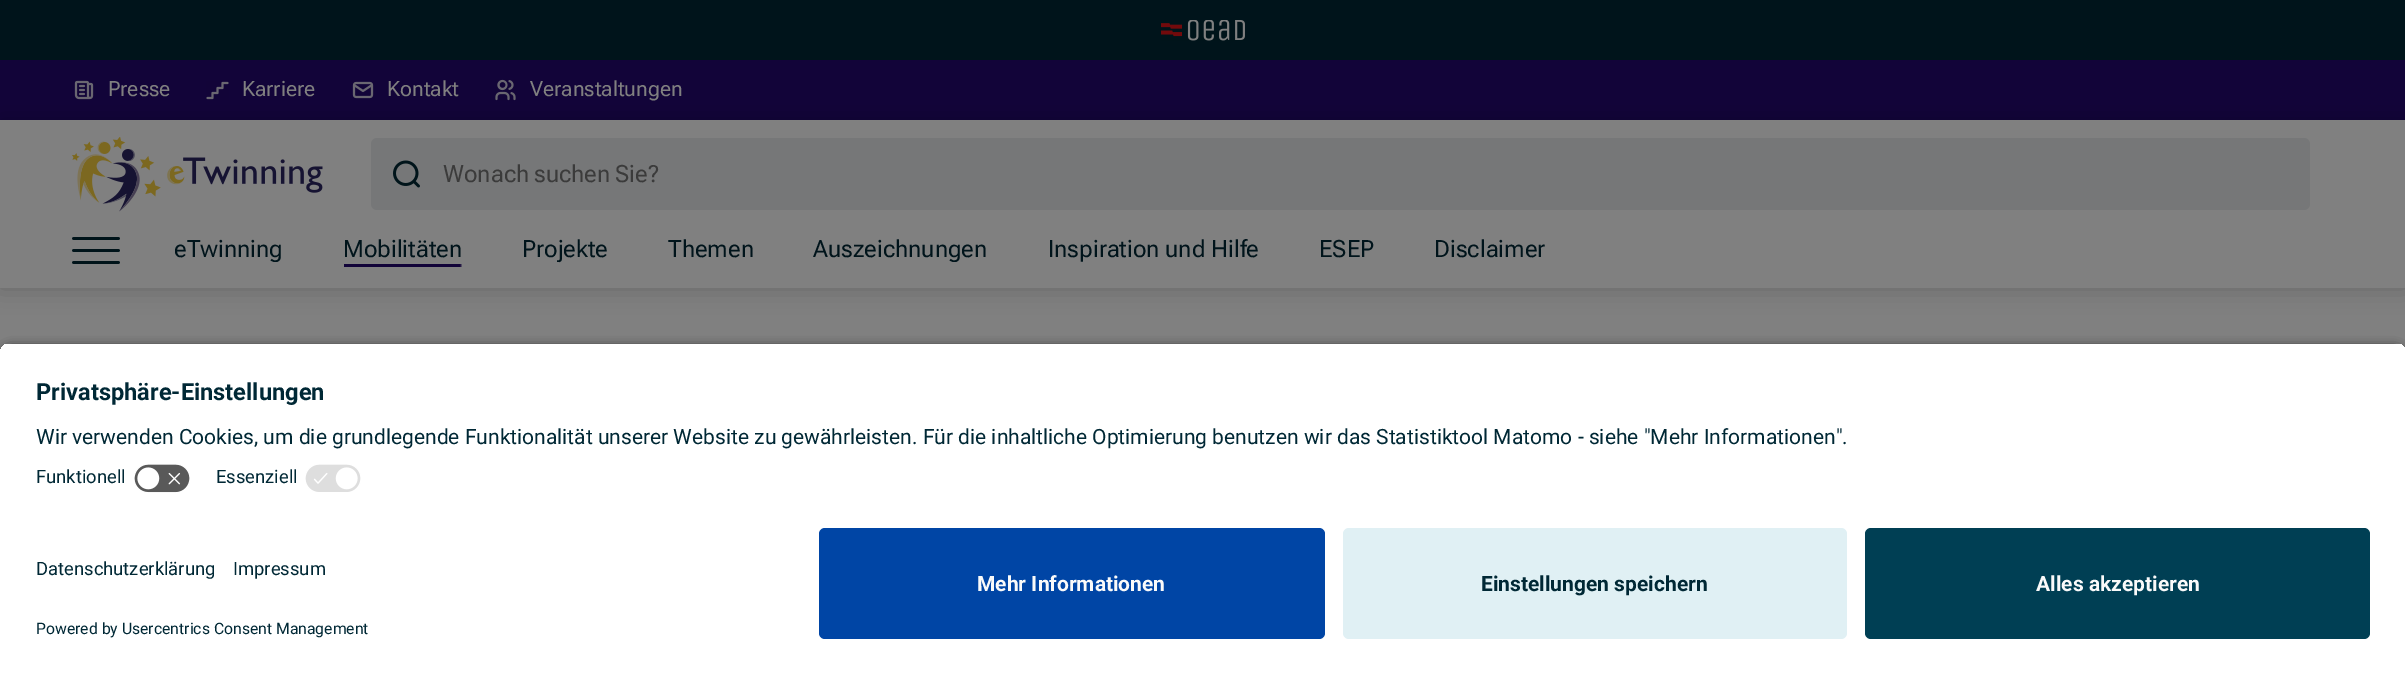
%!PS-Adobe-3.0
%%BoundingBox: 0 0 2405 675
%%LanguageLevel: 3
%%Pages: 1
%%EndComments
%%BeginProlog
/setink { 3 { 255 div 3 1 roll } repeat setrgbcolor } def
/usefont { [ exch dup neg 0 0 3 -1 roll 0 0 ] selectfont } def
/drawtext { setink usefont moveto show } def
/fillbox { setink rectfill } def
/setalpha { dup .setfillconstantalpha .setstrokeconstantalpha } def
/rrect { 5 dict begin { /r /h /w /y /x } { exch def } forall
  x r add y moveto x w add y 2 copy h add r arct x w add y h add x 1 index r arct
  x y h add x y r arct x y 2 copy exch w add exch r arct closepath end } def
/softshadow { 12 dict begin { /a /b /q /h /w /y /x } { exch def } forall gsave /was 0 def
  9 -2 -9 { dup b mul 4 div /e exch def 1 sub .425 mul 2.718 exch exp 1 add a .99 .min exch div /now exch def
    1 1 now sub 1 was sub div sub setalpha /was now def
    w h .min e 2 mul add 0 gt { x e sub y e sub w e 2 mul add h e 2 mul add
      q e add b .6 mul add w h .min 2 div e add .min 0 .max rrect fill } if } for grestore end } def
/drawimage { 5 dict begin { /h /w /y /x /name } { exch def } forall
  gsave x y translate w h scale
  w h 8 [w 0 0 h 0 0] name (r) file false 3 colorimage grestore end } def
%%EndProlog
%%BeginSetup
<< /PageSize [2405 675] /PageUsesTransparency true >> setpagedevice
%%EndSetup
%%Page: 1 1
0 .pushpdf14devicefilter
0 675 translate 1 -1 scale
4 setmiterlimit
0 0 2405 675 128 128 128 fillbox
0 0 2405 60 0 20 27 fillbox
(assets/img1.rgb) 1161 20 84 21 drawimage
0 60 2405 60 18 4 57 fillbox
(assets/img2.rgb) 74 80 20 20 drawimage
(Presse) 108 96 /RobotoFlex-Italic 21 128 128 128 drawtext
(assets/img3.rgb) 206 81 23 19 drawimage
(Karriere) 242 96 /RobotoFlex-Italic 21 128 128 128 drawtext
(assets/img4.rgb) 352 81 22 18 drawimage
(Kontakt) 387 96 /RobotoFlex-Italic 21 128 128 128 drawtext
(assets/img5.rgb) 495 79 21 22 drawimage
(Veranstaltungen) 530 96 /RobotoFlex-Italic 21 128 128 128 drawtext
gsave
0 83 moveto 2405 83 lineto 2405 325 lineto 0 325 lineto closepath 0 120 moveto 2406 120 lineto 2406 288 lineto 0 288 lineto closepath eoclip newpath
0 0 0 setink
0 120 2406 168 0 12 0.2 softshadow
grestore
(assets/img6.rgb) 72 137 251 75 drawimage
118 119 120 setink
371 138 1939 72 6 rrect fill
(assets/img7.rgb) 393 160 27 28 drawimage
/RobotoFlex-Italic 23.75 usefont
59 59 59 setink
443 182 moveto -1 0 32 (Wonach suchen Sie?) widthshow
(assets/img8.rgb) 72 237 48 27 drawimage
(eTwinning) 174 257 /RobotoFlex-Italic 23.75 0 20 27 drawtext
gsave 344 264 moveto 462 264 lineto 462 267 lineto 344 267 lineto closepath clip newpath
<< /ShadingType 2 /ColorSpace /DeviceRGB /Coords [581 265 344 266] /Extend [true true] /Function << /FunctionType 3 /Domain [0 1] /Functions [<< /FunctionType 2 /Domain [0 1] /C0 [0.502 0.502 0.502] /C1 [0.502 0.502 0.502] /N 1 >> << /FunctionType 2 /Domain [0 1] /C0 [0.502 0.502 0.502] /C1 [0.071 0.016 0.224] /N 1 >> << /FunctionType 2 /Domain [0 1] /C0 [0.071 0.016 0.224] /C1 [0.071 0.016 0.224] /N 1 >>] /Bounds [0.5 0.51] /Encode [0 1 0 1 0 1] >> >> shfill grestore
(Mobilitäten) 343 257 /RobotoFlex-Italic 23.75 0 20 27 drawtext
(Projekte) 522 257 /RobotoFlex-Italic 23.75 0 20 27 drawtext
(Themen) 668 257 /RobotoFlex-Italic 23.75 0 20 27 drawtext
(Auszeichnungen) 813 257 /RobotoFlex-Italic 23.75 0 20 27 drawtext
(Inspiration und Hilfe) 1048 257 /RobotoFlex-Italic 23.75 0 20 27 drawtext
(ESEP) 1319 257 /RobotoFlex-Italic 23.75 0 20 27 drawtext
(Disclaimer) 1434 257 /RobotoFlex-Italic 23.75 0 20 27 drawtext
0 0 0 setink
0 347 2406 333 12 5 0.8 softshadow
gsave
12 342 moveto 2394 342 lineto 2400.5 342 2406 347.5 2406 354 curveto 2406 516 lineto 0 516 lineto 0 354 lineto 0 347.5 5.5 342 12 342 curveto closepath clip newpath
0 344 2405 172 255 255 255 fillbox
0 344 2405 112 255 255 255 fillbox
grestore
(Privatsphäre-Einstellungen) 36 400 /Roboto-Bold 23.6 0 40 53 drawtext
(Wir verwenden Cookies, um die grundlegende Funktionalität unserer Website zu gewährleisten. Für die inhaltliche Optimierung benutzen wir das Statistiktool Matomo - siehe "Mehr Informationen".) 36 444 /Roboto-Regular 21 0 40 53 drawtext
(Funktionell) 36 483 /Roboto-Regular 18.4 0 40 53 drawtext
(assets/img9.rgb) 134 464 56 29 drawimage
(Essenziell) 216 483 /Roboto-Regular 18.4 0 40 53 drawtext
(assets/img10.rgb) 305 464 56 28 drawimage
0 516 2405 159 255 255 255 fillbox
(Datenschutzerklärung) 36 575 /Roboto-Regular 18.4 0 40 53 drawtext
(Impressum) 233 575 /Roboto-Regular 18.4 0 40 53 drawtext
(Powered by Usercentrics Consent Management) 36 634 /Roboto-Regular 15.75 0 40 53 drawtext
0 69 165 setink
819 528 506 111 6 rrect fill
(Mehr Informationen) 977 591 /Roboto-Bold 21 250 250 250 drawtext
224 240 244 setink
1343 528 504 111 6 rrect fill
(Einstellungen speichern) 1481 591 /Roboto-Bold 21 0 40 53 drawtext
0 63 84 setink
1865 528 505 111 6 rrect fill
(Alles akzeptieren) 2036 591 /Roboto-Bold 21 250 250 250 drawtext
.poppdf14devicefilter showpage
%%EOF
